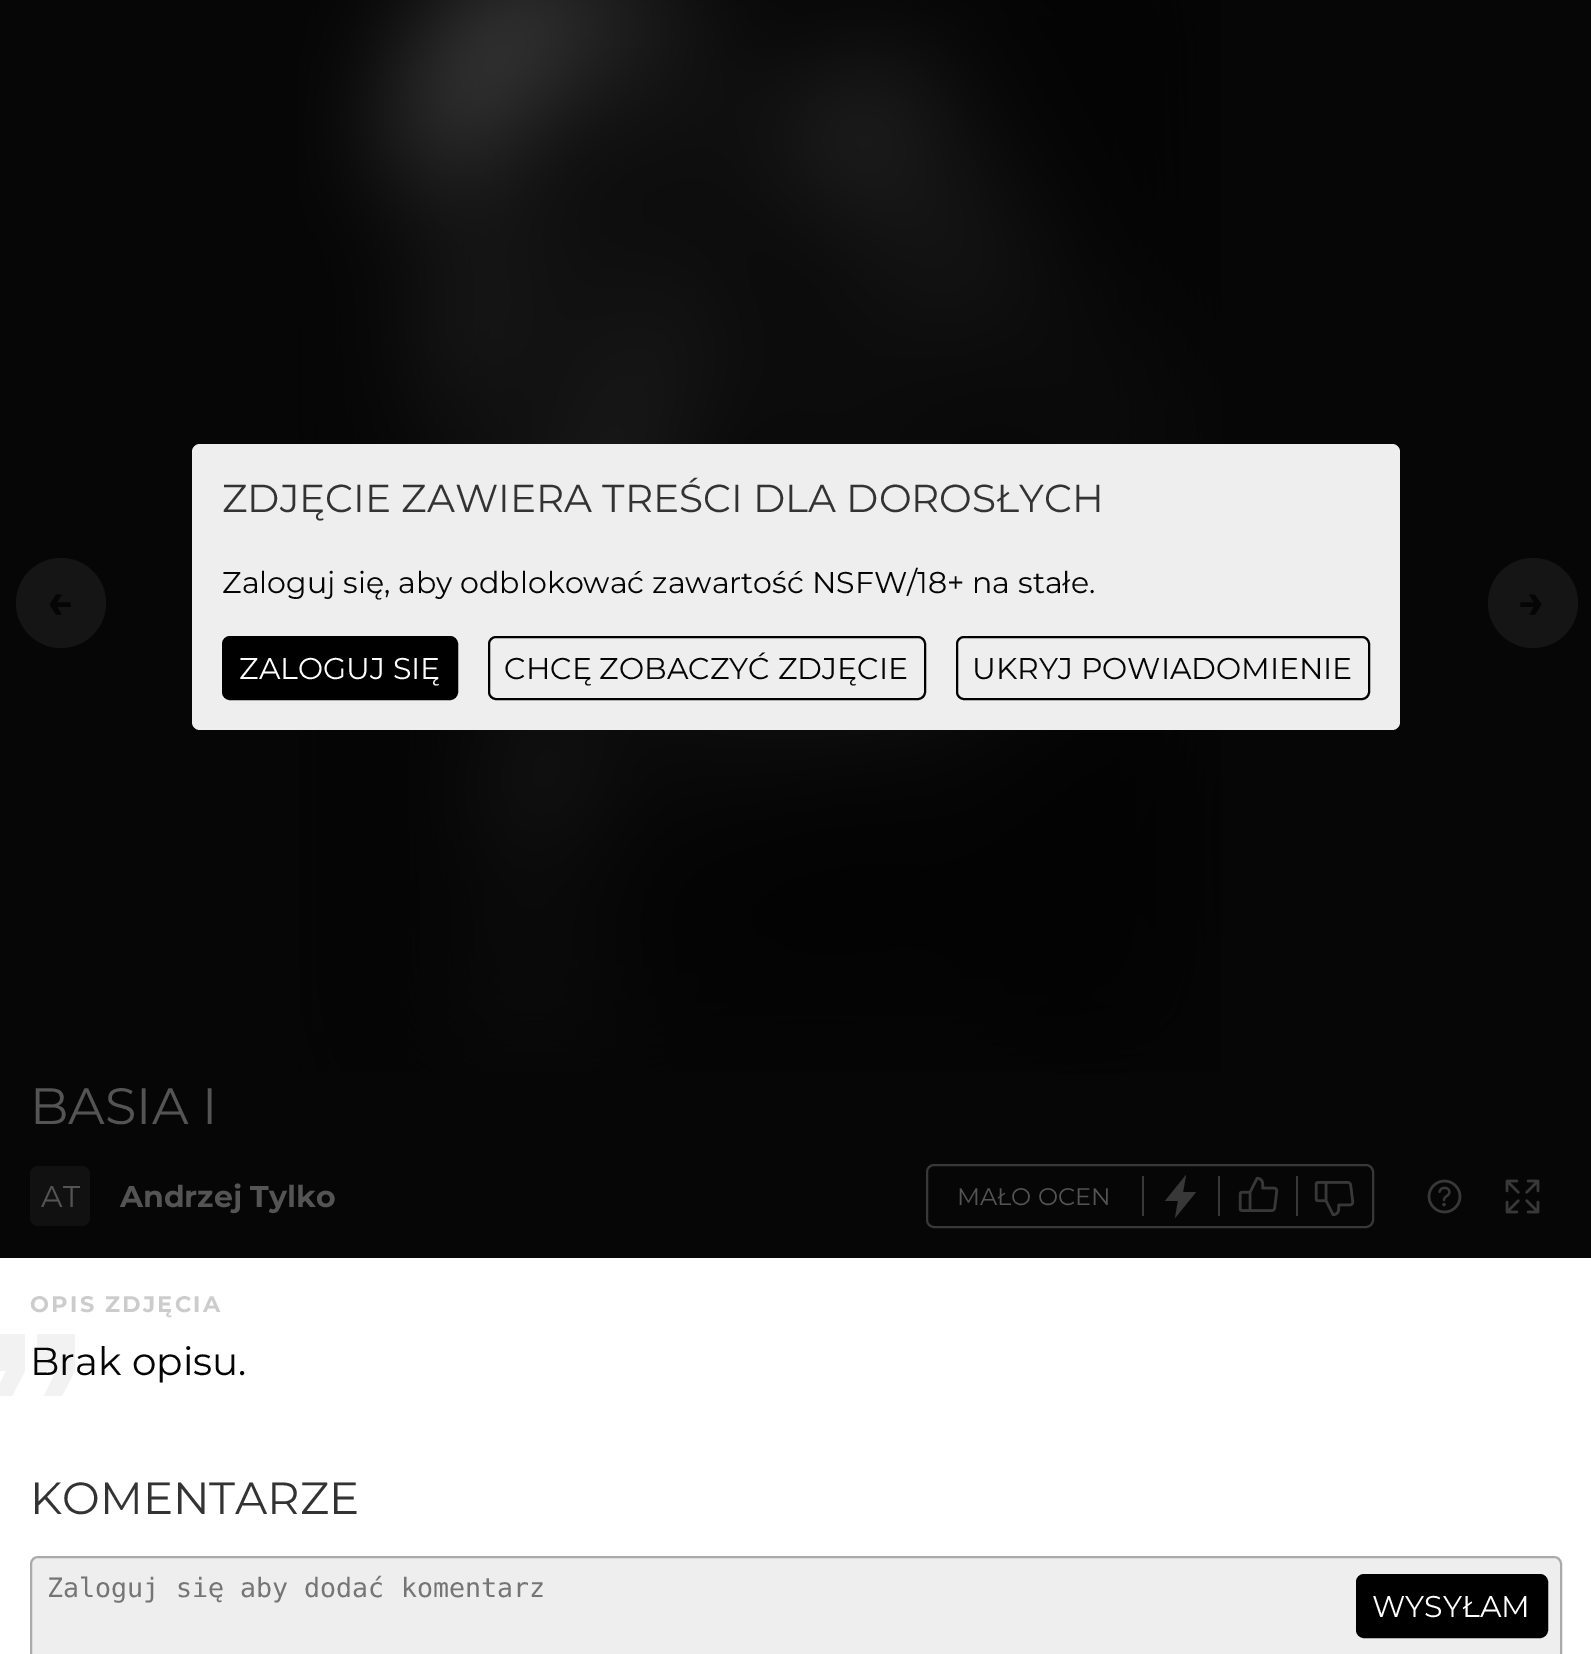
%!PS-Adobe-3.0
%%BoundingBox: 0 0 1591 1654
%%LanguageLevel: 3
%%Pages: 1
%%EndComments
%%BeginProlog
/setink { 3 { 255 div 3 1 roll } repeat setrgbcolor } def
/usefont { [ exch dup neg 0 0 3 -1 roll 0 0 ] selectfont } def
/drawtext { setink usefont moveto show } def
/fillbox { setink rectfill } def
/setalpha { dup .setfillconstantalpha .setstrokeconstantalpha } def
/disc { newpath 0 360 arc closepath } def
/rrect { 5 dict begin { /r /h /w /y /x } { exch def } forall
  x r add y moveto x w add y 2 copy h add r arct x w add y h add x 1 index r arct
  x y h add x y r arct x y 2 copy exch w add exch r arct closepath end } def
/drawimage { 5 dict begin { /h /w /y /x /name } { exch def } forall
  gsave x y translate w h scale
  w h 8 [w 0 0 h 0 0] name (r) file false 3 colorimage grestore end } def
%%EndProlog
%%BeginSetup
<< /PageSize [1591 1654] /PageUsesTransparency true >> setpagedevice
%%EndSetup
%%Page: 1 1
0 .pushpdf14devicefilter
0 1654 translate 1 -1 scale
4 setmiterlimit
0 0 1591 1654 255 255 255 fillbox
0 0 1591 1258 6 6 6 fillbox
(assets/img1.rgb) 298 0 924 1073 drawimage
21 21 21 setink
61 603 45 disc fill
(←) 46 617 /Montserrat-Bold 45 5 5 5 drawtext
238 238 238 setink
192 444 1208 286 8 rrect fill
(ZDJĘCIE ZAWIERA TREŚCI DLA DOROSŁYCH) 222 512 /Montserrat-Regular 39 51 51 51 drawtext
(Zaloguj się, aby odblokować zawartość NSFW/18+ na stałe.) 222 593 /Montserrat-Regular 30 5 5 5 drawtext
0 0 0 setink
223 637 234 62 7 rrect gsave fill grestore
2 setlinewidth
stroke
(ZALOGUJ SIĘ) 239 679 /Montserrat-Regular 30 255 255 255 drawtext
0 0 0 setink
489 637 436 62 7 rrect stroke
(CHCĘ ZOBACZYĆ ZDJĘCIE) 504 679 /Montserrat-Regular 30 5 5 5 drawtext
0 0 0 setink
957 637 412 62 7 rrect stroke
(UKRYJ POWIADOMIENIE) 972 679 /Montserrat-Regular 30 5 5 5 drawtext
21 21 21 setink
1533 603 45 disc fill
(→) 1518 617 /Montserrat-Bold 45 5 5 5 drawtext
(BASIA I) 30 1124 /Montserrat-Regular 51 84 84 84 drawtext
17 17 17 setink
30 1166 60 60 8 rrect fill
(AT) 41 1207 /Montserrat-Regular 30 84 84 84 drawtext
(Andrzej Tylko) 120 1207 /Montserrat-Bold 30 84 84 84 drawtext
56 56 56 setink
927 1165 446 62 7 rrect stroke
(MAŁO OCEN) 957 1205 /Montserrat-Regular 24 84 84 84 drawtext
1142 1176 2 40 56 56 56 fillbox
1196 1192 moveto 1183 1192 lineto 1186 1175 lineto 1165 1201 lineto 1178 1201 lineto 1175 1218 lineto closepath fill
1218 1176 2 40 56 56 56 fillbox
(assets/img2.rgb) 1238 1176 41 36 drawimage
1296 1176 2 40 56 56 56 fillbox
(assets/img3.rgb) 1314 1181 41 36 drawimage
(assets/img4.rgb) 1427 1179 35 35 drawimage
(assets/img5.rgb) 1505 1179 35 35 drawimage
/Montserrat-Bold 22.5 usefont
204 204 204 setink
30 1312 moveto 2.25 0 (OPIS ZDJĘCIA) ashow
0.05 setalpha
0 0 0 setink
-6 1396 moveto 12 1396 lineto 25 1371 lineto 25 1334 lineto -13 1334 lineto -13 1371 lineto 6 1371 lineto closepath 44 1396 moveto 62 1396 lineto 75 1371 lineto 75 1334 lineto 37 1334 lineto 37 1371 lineto 56 1371 lineto closepath fill
1 setalpha
(Brak opisu.) 30 1375 /Montserrat-Regular 39 5 5 5 drawtext
(KOMENTARZE) 30 1514 /Montserrat-Regular 45 51 51 51 drawtext
238 238 238 setink
31 1557 1530 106 7 rrect gsave fill grestore
170 170 170 setink
stroke
(Zaloguj się aby dodać komentarz) 47 1597 /DejaVuSansMono-Regular 26.7 117 117 117 drawtext
0 0 0 setink
1357 1575 190 62 7 rrect gsave fill grestore
stroke
(WYSYŁAM) 1372 1617 /Montserrat-Regular 30 255 255 255 drawtext
.poppdf14devicefilter showpage
%%EOF
